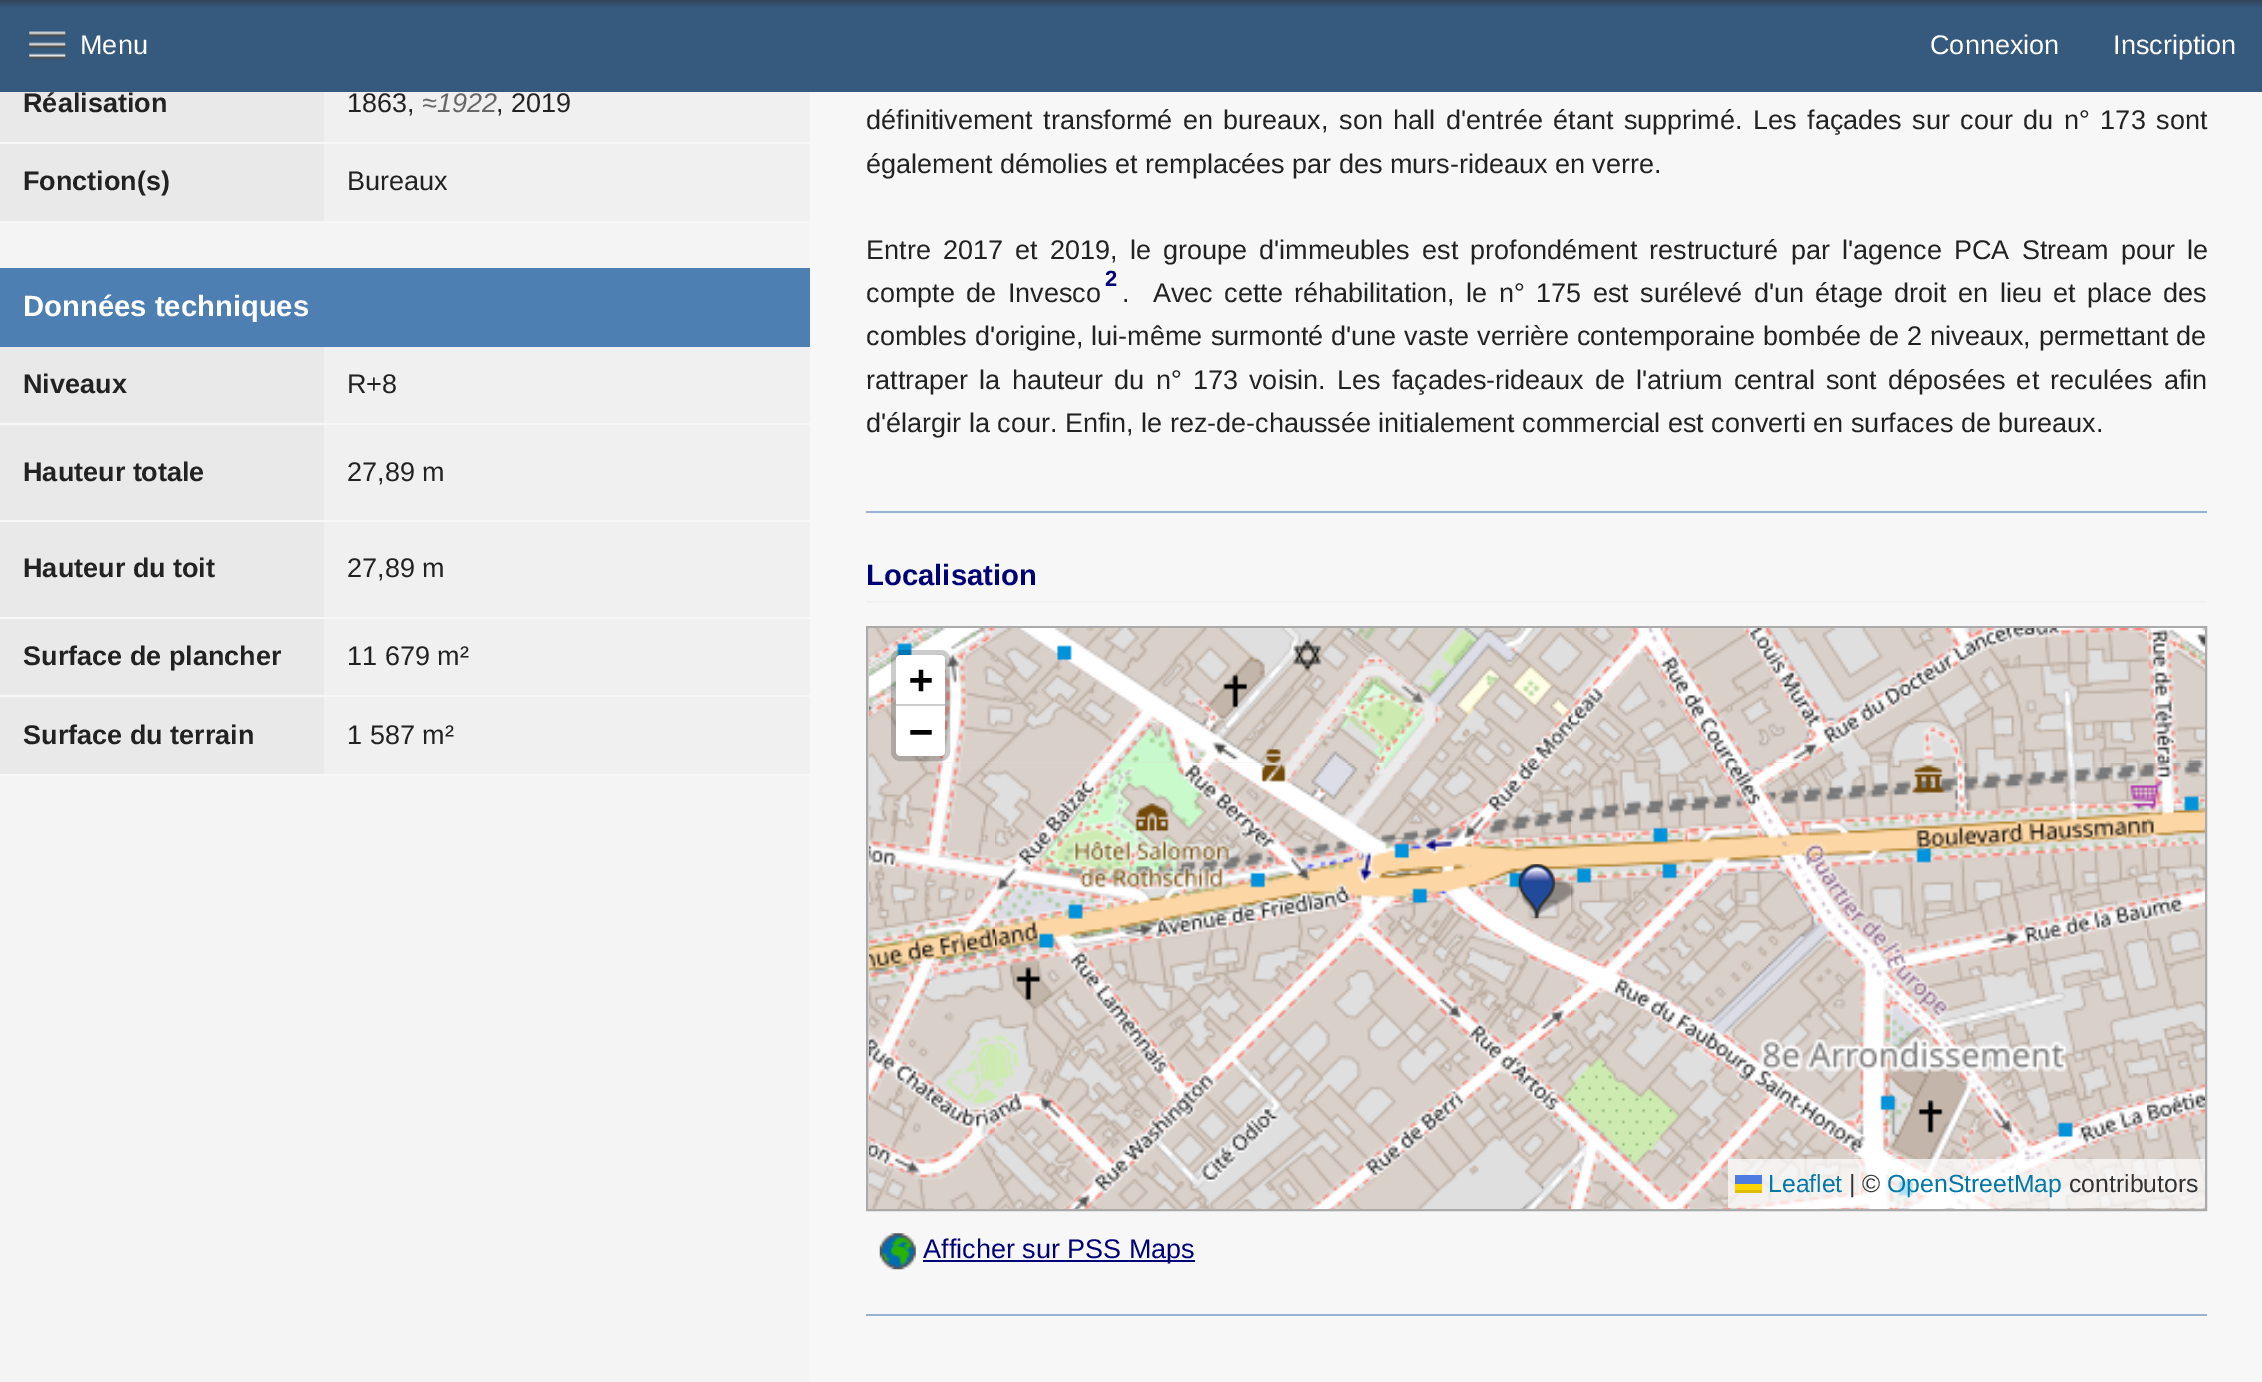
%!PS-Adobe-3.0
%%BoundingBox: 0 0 2262 1382
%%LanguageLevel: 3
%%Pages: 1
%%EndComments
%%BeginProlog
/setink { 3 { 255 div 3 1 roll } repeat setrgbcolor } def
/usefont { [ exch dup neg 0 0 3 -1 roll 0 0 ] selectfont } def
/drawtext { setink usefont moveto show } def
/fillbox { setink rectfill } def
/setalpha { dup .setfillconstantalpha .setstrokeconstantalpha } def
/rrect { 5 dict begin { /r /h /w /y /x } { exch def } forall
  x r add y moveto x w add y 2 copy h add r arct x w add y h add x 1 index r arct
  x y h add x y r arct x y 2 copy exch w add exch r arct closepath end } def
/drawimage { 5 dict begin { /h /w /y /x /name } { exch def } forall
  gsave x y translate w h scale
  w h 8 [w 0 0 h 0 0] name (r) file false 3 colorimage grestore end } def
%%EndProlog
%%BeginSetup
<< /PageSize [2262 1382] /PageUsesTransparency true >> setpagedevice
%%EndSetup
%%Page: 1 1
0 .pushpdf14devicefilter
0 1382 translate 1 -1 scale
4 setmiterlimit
0 0 2262 1382 247 247 247 fillbox
gsave 0 0 moveto 2262 0 lineto 2262 92 lineto 0 92 lineto closepath clip newpath
<< /ShadingType 2 /ColorSpace /DeviceRGB /Coords [1132 -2.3 1132 92] /Extend [true true] /Function << /FunctionType 3 /Domain [0 1] /Functions [<< /FunctionType 2 /Domain [0 1] /C0 [0.196 0.239 0.29] /C1 [0.212 0.349 0.494] /N 1 >> << /FunctionType 2 /Domain [0 1] /C0 [0.212 0.349 0.494] /C1 [0.212 0.349 0.494] /N 1 >>] /Bounds [0.1] /Encode [0 1 0 1] >> >> shfill grestore
(assets/img1.rgb) 29 31 37 29 drawimage
(Menu) 80 54 /LiberationSans-Regular 27 255 255 255 drawtext
(Connexion) 1930 54 /LiberationSans-Regular 27 255 255 255 drawtext
(Inscription) 2113 54 /LiberationSans-Regular 27 255 255 255 drawtext
0 223 810 1159 244 244 244 fillbox
0 92 324 50 233 233 233 fillbox
(Réalisation) 23 112 /LiberationSans-Bold 27 34 34 34 drawtext
324 92 486 50 240 240 240 fillbox
(1863,) 347 112 /LiberationSans-Regular 27 34 34 34 drawtext
(≈1922) 422 112 /LiberationSans-Italic 27 102 102 102 drawtext
(, 2019) 496 112 /LiberationSans-Regular 27 34 34 34 drawtext
0 144 324 77 233 233 233 fillbox
(Fonction\(s\)) 23 190 /LiberationSans-Bold 27 34 34 34 drawtext
324 144 486 77 240 240 240 fillbox
(Bureaux) 347 190 /LiberationSans-Regular 27 34 34 34 drawtext
0 268 810 79 78 127 178 fillbox
(Données techniques) 23 316 /LiberationSans-Bold 29.25 255 255 255 drawtext
0 347 324 76 233 233 233 fillbox
0 423 810 2 247 247 247 fillbox
(Niveaux) 23 393 /LiberationSans-Bold 27 34 34 34 drawtext
324 347 486 76 240 240 240 fillbox
(R+8) 347 393 /LiberationSans-Regular 27 34 34 34 drawtext
0 425 324 95 233 233 233 fillbox
0 520 810 2 247 247 247 fillbox
(Hauteur totale) 23 481 /LiberationSans-Bold 27 34 34 34 drawtext
324 425 486 95 240 240 240 fillbox
(27,89 m) 347 481 /LiberationSans-Regular 27 34 34 34 drawtext
0 522 324 95 233 233 233 fillbox
0 617 810 2 247 247 247 fillbox
(Hauteur du toit) 23 577 /LiberationSans-Bold 27 34 34 34 drawtext
324 522 486 95 240 240 240 fillbox
(27,89 m) 347 577 /LiberationSans-Regular 27 34 34 34 drawtext
0 619 324 155 233 233 233 fillbox
0 695 324 2 247 247 247 fillbox
(Surface de plancher) 23 665 /LiberationSans-Bold 27 34 34 34 drawtext
324 619 486 155 240 240 240 fillbox
324 695 486 2 247 247 247 fillbox
(11 679 m²) 347 665 /LiberationSans-Regular 27 34 34 34 drawtext
0 774 810 2 247 247 247 fillbox
(Surface du terrain) 23 744 /LiberationSans-Bold 27 34 34 34 drawtext
(1 587 m²) 347 744 /LiberationSans-Regular 27 34 34 34 drawtext
866 129 moveto 3.1 0 32 (définitivement transformé en bureaux, son hall d'entrée étant supprimé. Les façades sur cour du n° 173 sont) widthshow
(également démolies et remplacées par des murs-rideaux en verre.) 866 173 /LiberationSans-Regular 27 34 34 34 drawtext
866 259 moveto 4.75 0 32 (Entre 2017 et 2019, le groupe d'immeubles est profondément restructuré par l'agence PCA Stream pour le) widthshow
(2) 1105 286 /LiberationSans-Bold 22 0 0 119 drawtext
/LiberationSans-Regular 27 usefont
34 34 34 setink
866 302 moveto 4 0 32 (compte de Invesco) widthshow
1122 302 moveto 4 0 32 (.  Avec cette réhabilitation, le n° 175 est surélevé d'un étage droit en lieu et place des) widthshow
866 345 moveto 0.6 0 32 (combles d'origine, lui-même surmonté d'une vaste verrière contemporaine bombée de 2 niveaux, permettant de) widthshow
866 389 moveto 3.75 0 32 (rattraper la hauteur du n° 173 voisin. Les façades-rideaux de l'atrium central sont déposées et reculées afin) widthshow
(d'élargir la cour. Enfin, le rez-de-chaussée initialement commercial est converti en surfaces de bureaux.) 866 432 /LiberationSans-Regular 27 34 34 34 drawtext
866 511 1341 2 149 178 209 fillbox
866 601 1341 2 240 240 240 fillbox
(Localisation) 866 585 /LiberationSans-Bold 29.25 0 0 119 drawtext
221 221 221 setink
867 627 moveto 2206 627 lineto 2206 1210 lineto 867 1210 lineto closepath gsave fill grestore
170 170 170 setink
2 setlinewidth
stroke
(assets/img2.rgb) 869 628 126 135 drawimage
(assets/img3.rgb) 995 628 576 135 drawimage
(assets/img4.rgb) 1571 628 576 135 drawimage
(assets/img5.rgb) 2147 628 58 135 drawimage
(assets/img6.rgb) 869 763 126 446 drawimage
(assets/img7.rgb) 995 763 576 446 drawimage
(assets/img8.rgb) 1571 763 576 446 drawimage
(assets/img9.rgb) 2147 763 58 446 drawimage
(assets/img11.rgb) 1520 879 55 40 drawimage
(assets/img10.rgb) 1518 864 37 55 drawimage
0.2 setalpha
0 0 0 setink
5 setlinewidth
893.5 652.5 54 106 6.5 rrect stroke
1 setalpha
255 255 255 setink
901 655 moveto 940 655 lineto 943 655 945 657 945 660 curveto 945 707 lineto 896 707 lineto 896 660 lineto 896 657 898 655 901 655 curveto closepath fill
896 704 49 2 204 204 204 fillbox
(+) 909 693 /DejaVuSansMono-Bold 40 0 0 0 drawtext
255 255 255 setink
896 707 moveto 945 707 lineto 945 751 lineto 945 754 943 756 940 756 curveto 901 756 lineto 898 756 896 754 896 751 curveto closepath fill
(−) 909 745 /DejaVuSansMono-Bold 40 0 0 0 drawtext
0.7 setalpha
1728 1159 477 49 255 255 255 fillbox
1 setalpha
(Leaflet) 1768 1192 /LiberationSans-Regular 24.75 0 120 168 drawtext
1735 1175 27 9 76 123 225 fillbox
1735 1184 27 6 255 213 0 fillbox
1735 1190 27 3 224 188 0 fillbox
(| ©) 1849 1192 /LiberationSans-Regular 24.75 51 51 51 drawtext
(OpenStreetMap) 1887 1192 /LiberationSans-Regular 24.75 0 120 168 drawtext
(contributors) 2069 1192 /LiberationSans-Regular 24.75 51 51 51 drawtext
(assets/img12.rgb) 879 1233 37 37 drawimage
923 1260 272 2 0 0 119 fillbox
(Afficher sur PSS Maps) 923 1258 /LiberationSans-Regular 27 0 0 119 drawtext
866 1314 1341 2 149 178 209 fillbox
.poppdf14devicefilter showpage
%%EOF
